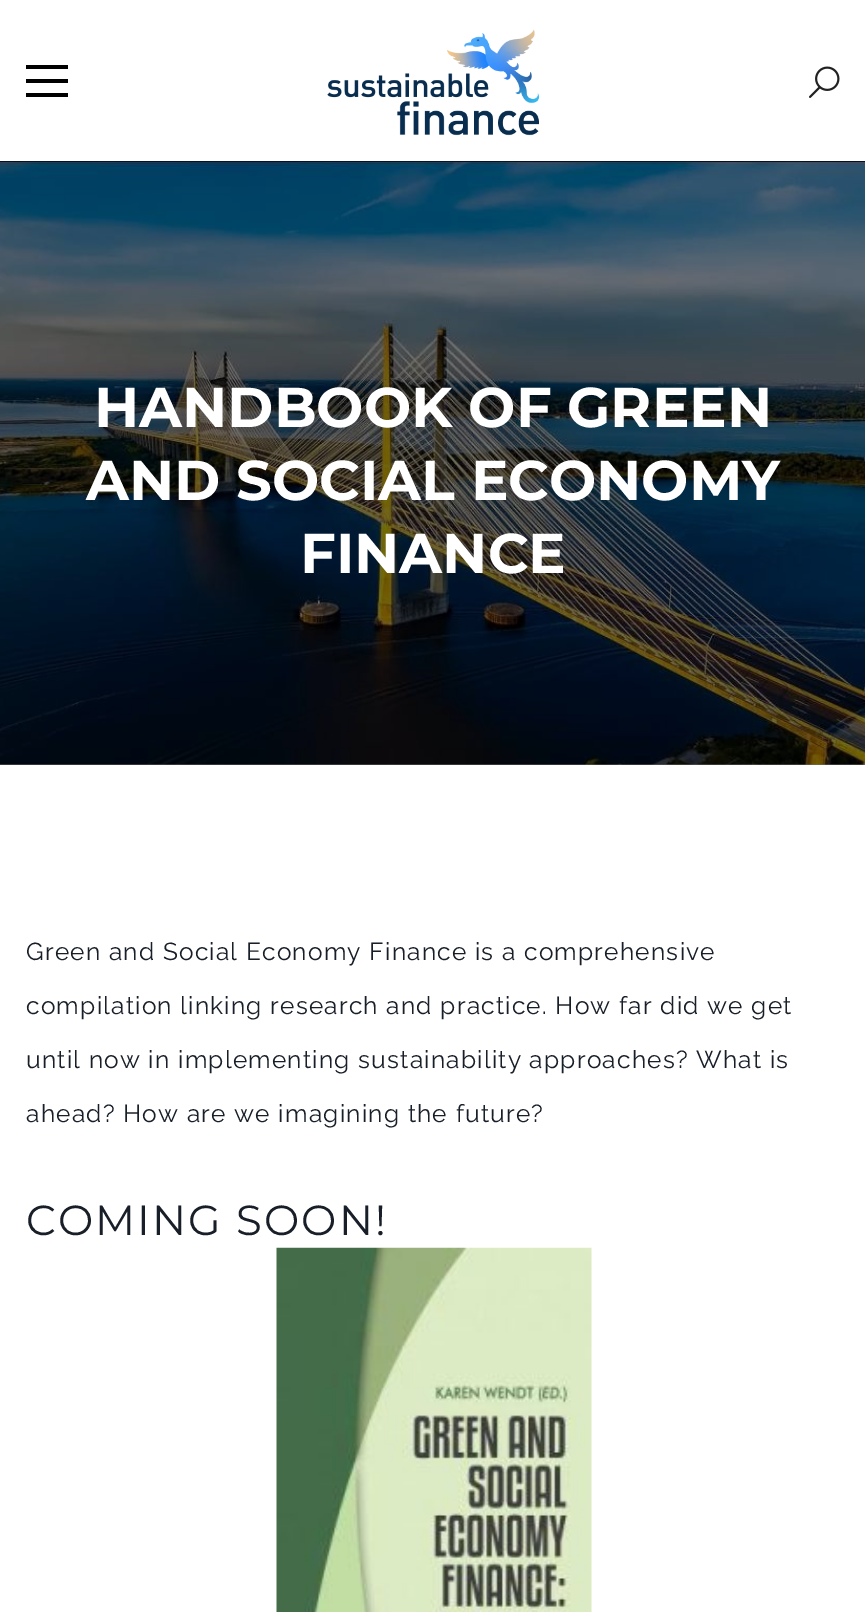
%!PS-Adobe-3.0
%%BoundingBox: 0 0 865 1612
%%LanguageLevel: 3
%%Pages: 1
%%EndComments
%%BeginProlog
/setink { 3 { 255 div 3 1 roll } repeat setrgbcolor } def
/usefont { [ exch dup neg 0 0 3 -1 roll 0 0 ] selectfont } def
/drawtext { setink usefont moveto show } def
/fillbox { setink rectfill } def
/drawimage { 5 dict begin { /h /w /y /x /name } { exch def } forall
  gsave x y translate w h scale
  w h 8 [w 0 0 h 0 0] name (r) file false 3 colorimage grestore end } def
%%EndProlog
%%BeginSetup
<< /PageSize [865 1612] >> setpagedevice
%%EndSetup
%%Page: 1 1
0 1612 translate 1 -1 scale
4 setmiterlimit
0 0 865 1612 255 255 255 fillbox
0 764 865 1 115 115 115 fillbox
26 65 42 4 0 0 0 fillbox
26 79 42 4 0 0 0 fillbox
26 93 42 4 0 0 0 fillbox
(assets/img1.rgb) 327 29 212 107 drawimage
(assets/img2.rgb) 809 66 31 32 drawimage
(assets/img3.rgb) 0 161 865 604 drawimage
(HANDBOOK OF GREEN) 94 427 /Montserrat-Bold 56 255 255 255 drawtext
(AND SOCIAL ECONOMY) 86 500 /Montserrat-Bold 56 255 255 255 drawtext
(FINANCE) 300 573 /Montserrat-Bold 56 255 255 255 drawtext
/Raleway-Regular 24.5 usefont
24 31 41 setink
26 960 moveto 1.22 0 (Green and Social Economy Finance is a comprehensive) ashow
26 1014 moveto 1.22 0 (compilation linking research and practice. How far did we get) ashow
26 1068 moveto 1.22 0 (until now in implementing sustainability approaches? What is) ashow
26 1122 moveto 1.22 0 (ahead? How are we imagining the future?) ashow
/Montserrat-Regular 42 usefont
26 1235 moveto 2.1 0 (COMING SOON!) ashow
(assets/img4.rgb) 276 1247 316 365 drawimage
showpage
%%EOF
